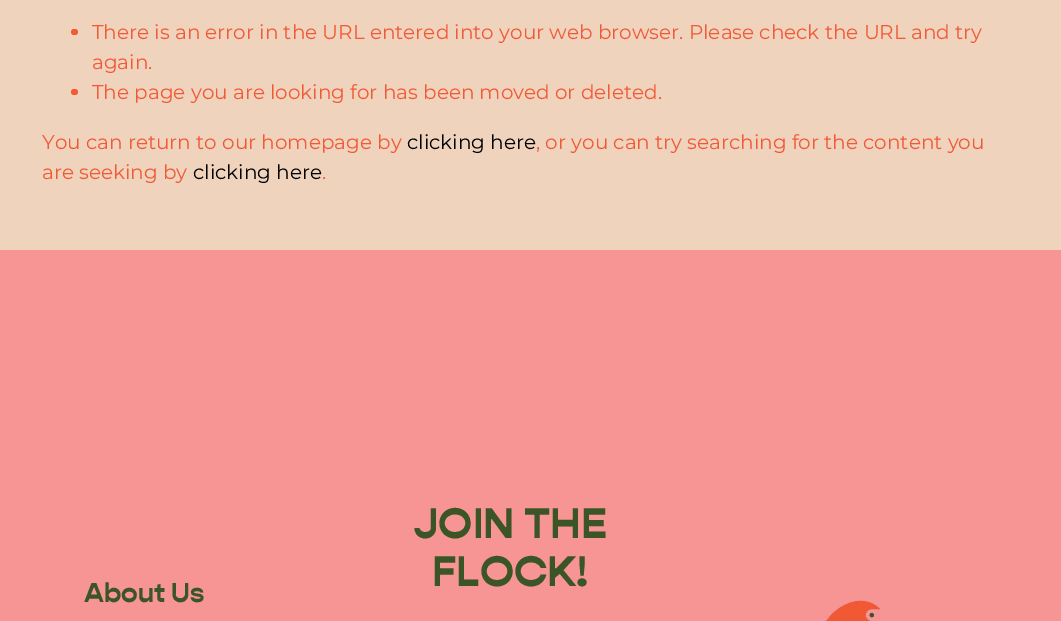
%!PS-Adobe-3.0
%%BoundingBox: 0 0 1061 621
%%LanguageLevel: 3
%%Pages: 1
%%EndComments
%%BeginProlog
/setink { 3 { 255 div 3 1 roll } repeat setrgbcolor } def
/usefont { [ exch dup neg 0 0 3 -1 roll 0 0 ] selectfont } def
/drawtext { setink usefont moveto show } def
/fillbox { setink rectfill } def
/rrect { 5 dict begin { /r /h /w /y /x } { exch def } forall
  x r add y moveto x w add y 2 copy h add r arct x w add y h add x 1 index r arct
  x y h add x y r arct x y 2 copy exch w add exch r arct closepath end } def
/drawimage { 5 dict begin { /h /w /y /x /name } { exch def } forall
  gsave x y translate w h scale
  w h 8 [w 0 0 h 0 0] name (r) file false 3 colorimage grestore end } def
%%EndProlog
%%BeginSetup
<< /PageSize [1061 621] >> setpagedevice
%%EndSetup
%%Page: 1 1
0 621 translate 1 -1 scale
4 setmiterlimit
0 0 1061 621 239 211 189 fillbox
242 89 53 setink
71 29 7 6 3 rrect fill
(There is an error in the URL entered into your web browser. Please check the URL and try) 92 39 /Montserrat-Regular 20 242 89 53 drawtext
(again.) 92 69 /Montserrat-Regular 20 242 89 53 drawtext
71 89 7 6 3 rrect fill
(The page you are looking for has been moved or deleted.) 92 99 /Montserrat-Regular 20 242 89 53 drawtext
(You can return to our homepage by) 42 149 /Montserrat-Regular 20 242 89 53 drawtext
(clicking here) 407 149 /Montserrat-Regular 20 0 0 0 drawtext
(, or you can try searching for the content you) 536 149 /Montserrat-Regular 20 242 89 53 drawtext
(are seeking by) 42 179 /Montserrat-Regular 20 242 89 53 drawtext
(clicking here) 193 179 /Montserrat-Regular 20 0 0 0 drawtext
(.) 322 179 /Montserrat-Regular 20 242 89 53 drawtext
0 250 1061 371 246 149 147 fillbox
(JOIN THE) 414 538 /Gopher-Bold 43 59 85 38 drawtext
(FLOCK!) 432 586 /Gopher-Bold 43 59 85 38 drawtext
(About Us) 84 602 /Gopher-Bold 27.5 59 85 38 drawtext
(assets/img1.rgb) 826 600 54 21 drawimage
showpage
%%EOF
